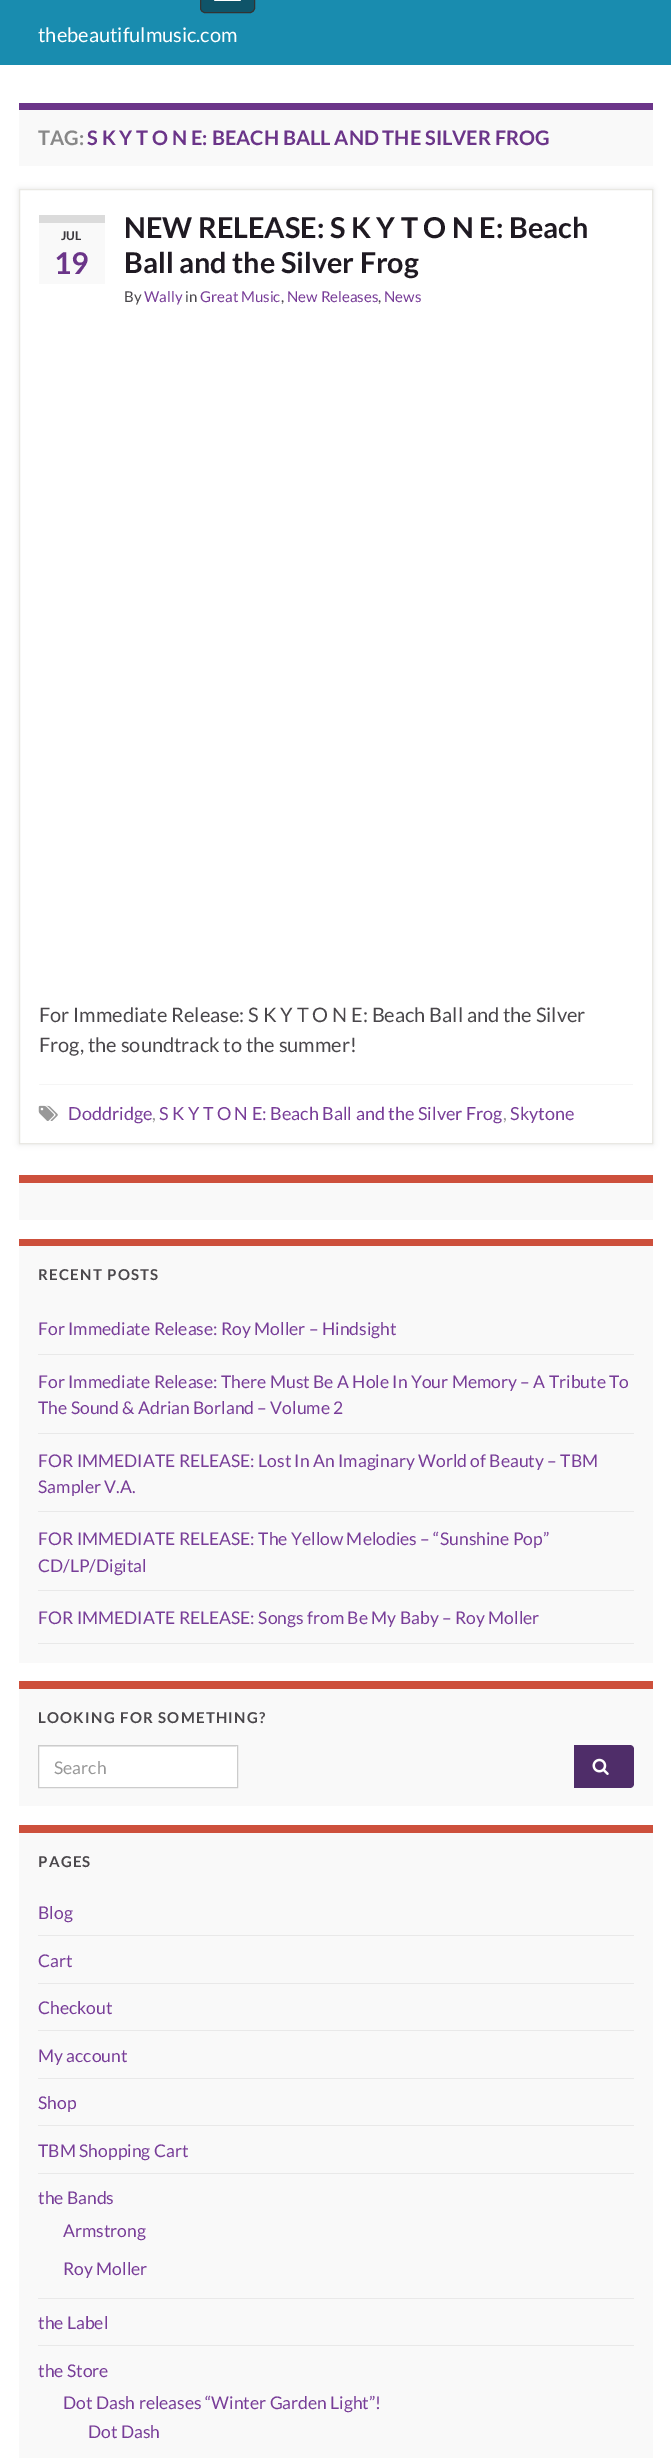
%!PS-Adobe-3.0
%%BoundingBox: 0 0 671 2458
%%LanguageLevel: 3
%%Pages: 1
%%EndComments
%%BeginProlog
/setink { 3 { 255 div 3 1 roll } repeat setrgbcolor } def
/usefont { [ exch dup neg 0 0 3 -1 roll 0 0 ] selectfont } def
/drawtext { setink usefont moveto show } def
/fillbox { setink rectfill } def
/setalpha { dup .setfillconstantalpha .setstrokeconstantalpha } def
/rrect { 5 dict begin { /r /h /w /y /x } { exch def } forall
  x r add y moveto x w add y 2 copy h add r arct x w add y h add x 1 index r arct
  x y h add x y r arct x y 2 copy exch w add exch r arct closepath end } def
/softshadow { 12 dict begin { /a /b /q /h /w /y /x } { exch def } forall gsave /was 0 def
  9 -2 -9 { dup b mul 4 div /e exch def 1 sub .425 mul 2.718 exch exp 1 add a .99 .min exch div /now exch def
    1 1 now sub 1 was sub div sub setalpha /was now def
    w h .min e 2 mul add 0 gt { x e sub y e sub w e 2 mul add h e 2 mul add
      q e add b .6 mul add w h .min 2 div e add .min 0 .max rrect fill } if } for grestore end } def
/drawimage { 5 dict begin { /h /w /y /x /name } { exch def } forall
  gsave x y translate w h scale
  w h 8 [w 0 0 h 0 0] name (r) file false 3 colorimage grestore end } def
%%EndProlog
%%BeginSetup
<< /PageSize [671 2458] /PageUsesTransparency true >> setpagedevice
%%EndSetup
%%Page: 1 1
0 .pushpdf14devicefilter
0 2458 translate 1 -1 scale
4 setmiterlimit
0 0 671 2458 255 255 255 fillbox
0 0 671 65 25 140 175 fillbox
15 84 105 setink
200.5 -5.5 54 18 4.5 rrect gsave fill grestore
51 51 51 setink
stroke
255 255 255 setink
214 -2 27 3 1.5 rrect fill
(thebeautifulmusic.com) 38 42 /Lato-Regular 20 255 255 255 drawtext
19 110 634 56 249 249 249 fillbox
19 103 634 7 107 53 137 fillbox
(TAG:) 38 145 /Lato-Bold 20 136 136 136 drawtext
(S K Y T O N E: BEACH BALL AND THE SILVER FROG) 87 145 /Lato-Bold 20 107 53 137 drawtext
0 0 0 setink
19 189 634 955 0 3 0.1 softshadow
255 255 255 setink
19.5 189.5 moveto 652.5 189.5 lineto 652.5 1143.5 lineto 19.5 1143.5 lineto closepath gsave fill grestore
233 232 227 setink
stroke
39 223 66 61 249 249 249 fillbox
39 215 66 8 219 219 219 fillbox
(JUL) 61 240 /Lato-Bold 12 59 56 61 drawtext
(19) 54 274 /Lato-Bold 30 107 53 137 drawtext
(NEW RELEASE: S K Y T O N E: Beach) 124 238 /Lato-Bold 28.75 31 26 34 drawtext
(Ball and the Silver Frog) 124 273 /Lato-Bold 28.75 31 26 34 drawtext
(By) 124 302 /Lato-Regular 15 74 71 75 drawtext
(Wally) 144 302 /Lato-Regular 15 120 61 152 drawtext
(in) 185 302 /Lato-Regular 15 74 71 75 drawtext
(Great Music) 200 302 /Lato-Regular 15 120 61 152 drawtext
(,) 281 302 /Lato-Regular 15 74 71 75 drawtext
(New Releases) 287 302 /Lato-Regular 15 120 61 152 drawtext
(,) 378 302 /Lato-Regular 15 74 71 75 drawtext
(News) 384 302 /Lato-Regular 15 120 61 152 drawtext
(For Immediate Release: S K Y T O N E: Beach Ball and the Silver) 39 1022 /Lato-Regular 20 74 71 75 drawtext
(Frog, the soundtrack to the summer!) 39 1052 /Lato-Regular 20 74 71 75 drawtext
39 1084 594 1 245 245 245 fillbox
(assets/img1.rgb) 38 1105 20 16 drawimage
(Doddridge) 68 1120 /Lato-Regular 18 120 61 152 drawtext
(,) 152 1120 /Lato-Regular 18 152 152 152 drawtext
(S K Y T O N E: Beach Ball and the Silver Frog) 159 1120 /Lato-Regular 18 120 61 152 drawtext
(,) 503 1120 /Lato-Regular 18 152 152 152 drawtext
(Skytone) 510 1120 /Lato-Regular 18 120 61 152 drawtext
19 1183 634 37 249 249 249 fillbox
19 1175 634 8 205 80 60 fillbox
19 1246 634 417 249 249 249 fillbox
19 1239 634 7 205 80 60 fillbox
/Lato-Bold 15 usefont
74 71 75 setink
38 1280 moveto 1.25 0 (RECENT POSTS) ashow
38 1354 596 1 233 233 233 fillbox
(For Immediate Release: Roy Moller – Hindsight) 38 1335 /Lato-Regular 17.5 120 61 152 drawtext
38 1433 596 1 233 233 233 fillbox
(For Immediate Release: There Must Be A Hole In Your Memory – A Tribute To) 38 1388 /Lato-Regular 17.5 120 61 152 drawtext
(The Sound & Adrian Borland – Volume 2) 38 1414 /Lato-Regular 17.5 120 61 152 drawtext
38 1511 596 1 233 233 233 fillbox
(FOR IMMEDIATE RELEASE: Lost In An Imaginary World of Beauty – TBM) 38 1467 /Lato-Regular 17.5 120 61 152 drawtext
(Sampler V.A.) 38 1493 /Lato-Regular 17.5 120 61 152 drawtext
38 1590 596 1 233 233 233 fillbox
(FOR IMMEDIATE RELEASE: The Yellow Melodies – “Sunshine Pop”) 38 1545 /Lato-Regular 17.5 120 61 152 drawtext
(CD/LP/Digital) 38 1572 /Lato-Regular 17.5 120 61 152 drawtext
38 1643 596 1 233 233 233 fillbox
(FOR IMMEDIATE RELEASE: Songs from Be My Baby – Roy Moller) 38 1624 /Lato-Regular 17.5 120 61 152 drawtext
19 1689 634 117 249 249 249 fillbox
19 1681 634 8 205 80 60 fillbox
/Lato-Bold 15 usefont
74 71 75 setink
38 1723 moveto 1.25 0 (LOOKING FOR SOMETHING?) ashow
39 1746 198 41 255 255 255 fillbox
39 1746 197 1 236 236 236 fillbox
204 204 204 setink
38.5 1745.5 199 42 rectstroke
(Search) 54 1774 /Lato-Regular 17.5 152 152 152 drawtext
79 45 105 setink
574 1745 moveto 630 1745 lineto 632 1745 634 1747 634 1749 curveto 634 1784 lineto 634 1786 632 1788 630 1788 curveto 574 1788 lineto closepath fill
(assets/img2.rgb) 592 1758 17 17 drawimage
19 1833 634 625 249 249 249 fillbox
19 1825 634 8 205 80 60 fillbox
/Lato-Bold 15 usefont
74 71 75 setink
38 1867 moveto 1.25 0 (PAGES) ashow
38 1935 596 1 233 233 233 fillbox
(Blog) 38 1919 /Lato-Regular 17.5 120 61 152 drawtext
38 1983 596 1 233 233 233 fillbox
(Cart) 38 1967 /Lato-Regular 17.5 120 61 152 drawtext
38 2030 596 1 233 233 233 fillbox
(Checkout) 38 2014 /Lato-Regular 17.5 120 61 152 drawtext
38 2078 596 1 233 233 233 fillbox
(My account) 38 2062 /Lato-Regular 17.5 120 61 152 drawtext
38 2125 596 1 233 233 233 fillbox
(Shop) 38 2109 /Lato-Regular 17.5 120 61 152 drawtext
38 2173 596 1 233 233 233 fillbox
(TBM Shopping Cart) 38 2157 /Lato-Regular 17.5 120 61 152 drawtext
38 2298 596 1 233 233 233 fillbox
(the Bands) 38 2204 /Lato-Regular 17.5 120 61 152 drawtext
(Armstrong) 63 2237 /Lato-Regular 17.5 120 61 152 drawtext
(Roy Moller) 63 2275 /Lato-Regular 17.5 120 61 152 drawtext
38 2345 596 1 233 233 233 fillbox
(the Label) 38 2329 /Lato-Regular 17.5 120 61 152 drawtext
(the Store) 38 2377 /Lato-Regular 17.5 120 61 152 drawtext
(Dot Dash releases “Winter Garden Light”!) 63 2409 /Lato-Regular 17.5 120 61 152 drawtext
(Dot Dash) 88 2438 /Lato-Regular 17.5 120 61 152 drawtext
.poppdf14devicefilter showpage
%%EOF
